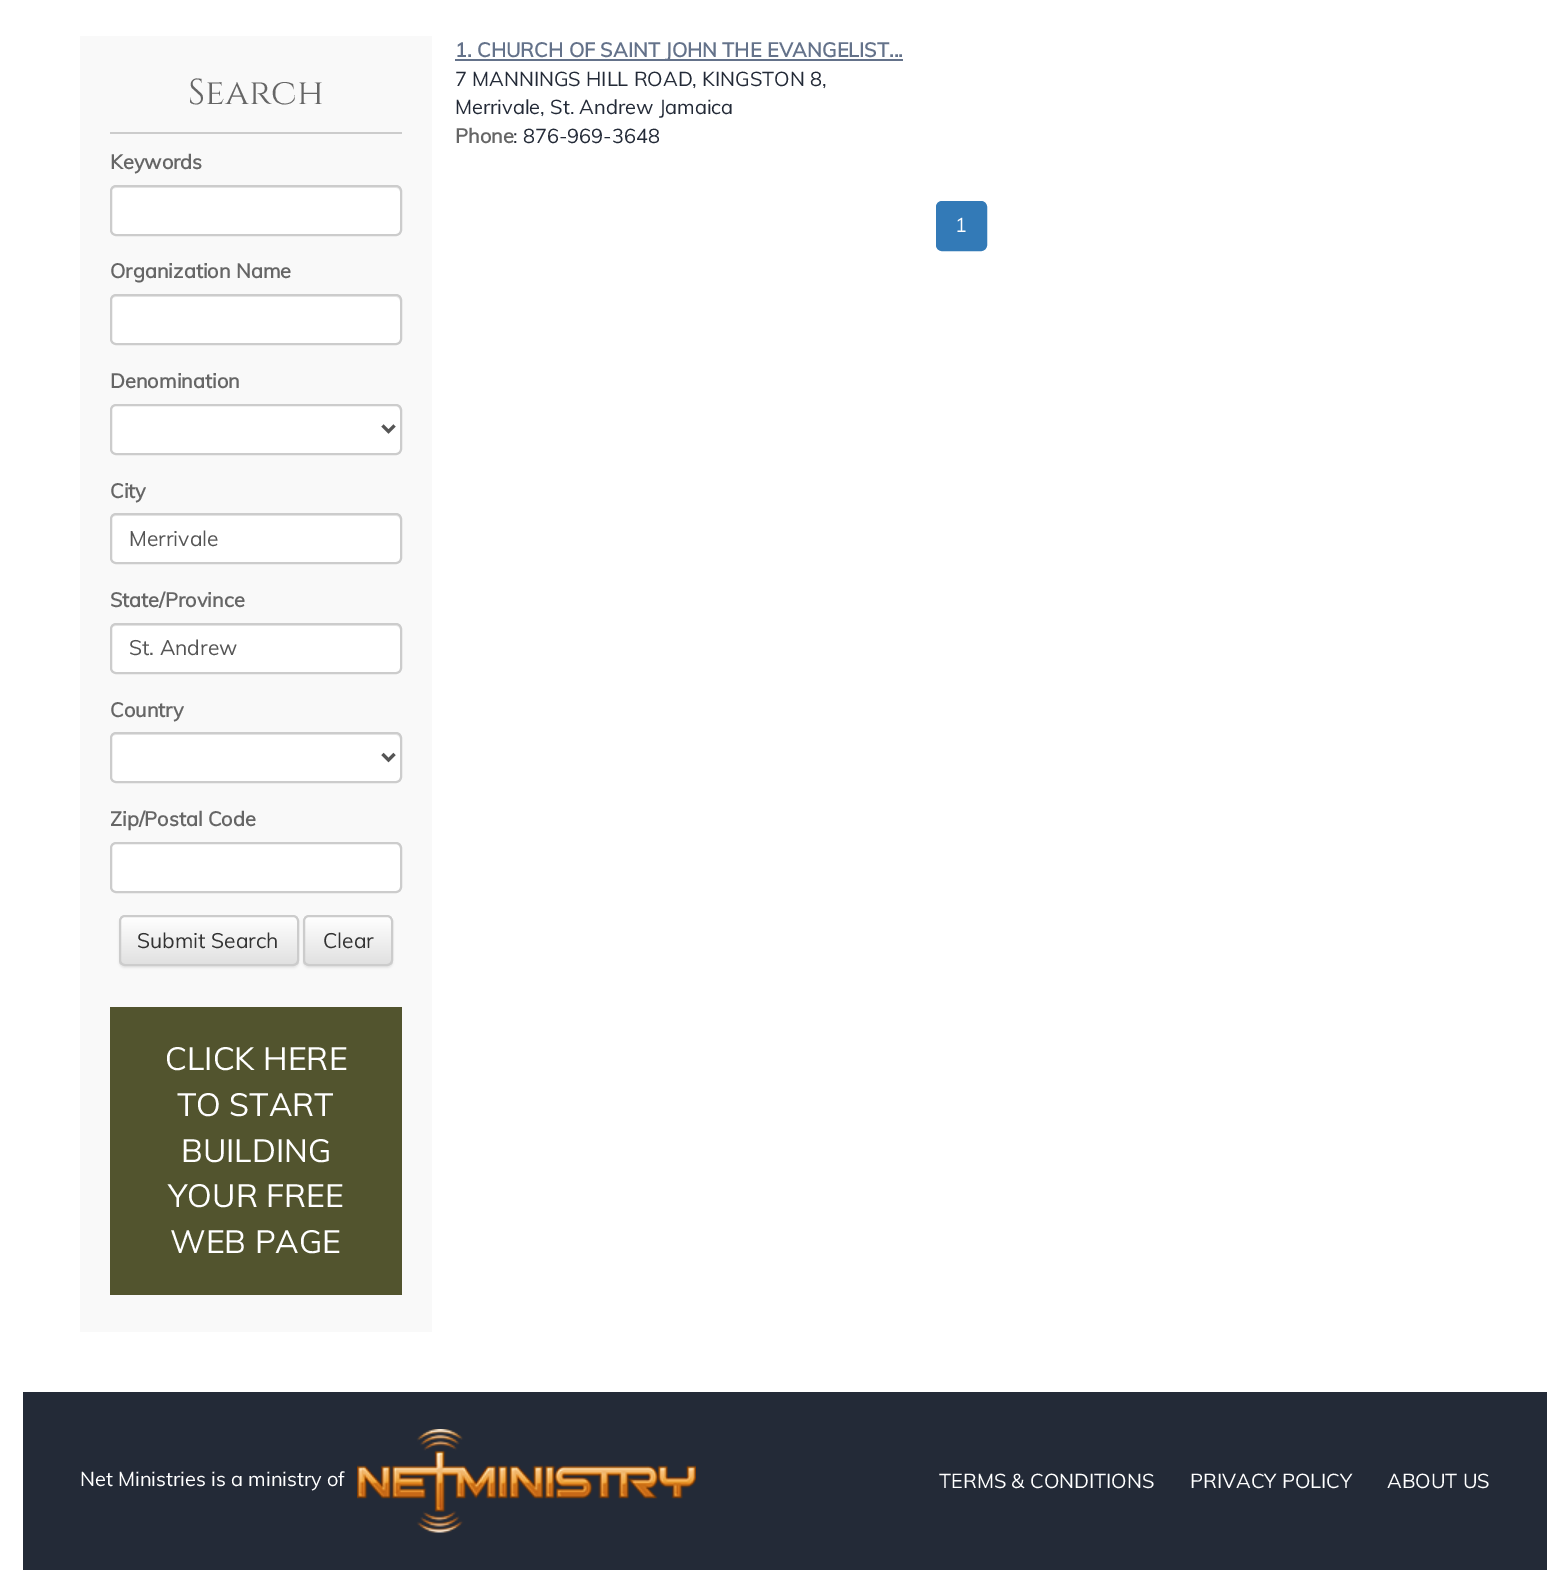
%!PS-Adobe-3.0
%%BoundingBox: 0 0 1568 1570
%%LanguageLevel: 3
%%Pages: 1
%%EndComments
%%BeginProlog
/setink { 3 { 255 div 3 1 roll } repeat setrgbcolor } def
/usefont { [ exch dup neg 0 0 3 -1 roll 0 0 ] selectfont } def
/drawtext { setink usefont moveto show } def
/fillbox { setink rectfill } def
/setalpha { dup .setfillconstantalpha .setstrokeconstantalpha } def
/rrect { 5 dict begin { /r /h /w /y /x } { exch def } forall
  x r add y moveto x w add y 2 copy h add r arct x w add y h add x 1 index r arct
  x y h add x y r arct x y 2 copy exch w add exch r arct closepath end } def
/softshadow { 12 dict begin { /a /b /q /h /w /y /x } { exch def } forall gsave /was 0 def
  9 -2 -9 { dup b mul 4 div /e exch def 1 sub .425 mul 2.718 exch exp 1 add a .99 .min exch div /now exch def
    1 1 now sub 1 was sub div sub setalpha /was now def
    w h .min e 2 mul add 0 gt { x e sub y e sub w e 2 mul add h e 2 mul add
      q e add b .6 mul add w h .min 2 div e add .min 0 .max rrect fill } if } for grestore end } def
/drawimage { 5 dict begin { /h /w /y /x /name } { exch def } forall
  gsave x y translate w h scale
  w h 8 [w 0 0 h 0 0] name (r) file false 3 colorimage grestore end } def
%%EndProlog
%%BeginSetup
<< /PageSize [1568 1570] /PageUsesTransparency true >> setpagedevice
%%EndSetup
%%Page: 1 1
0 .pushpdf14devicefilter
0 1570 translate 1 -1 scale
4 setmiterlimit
0 0 1568 1570 255 255 255 fillbox
80 36 352 1296 249 249 249 fillbox
110 132 292 2 204 204 204 fillbox
(Search) 188 104 /Cinzel-Regular 36 102 102 102 drawtext
(Keywords) 110 169 /Muli-Bold 20 102 102 102 drawtext
255 255 255 setink
110 185 292 51 6 rrect fill
236 236 236 setink
116 188 moveto 396 188 lineto 398 188 400 190 400 192 curveto 400 232 lineto 401 231 401 230 401 229 curveto 401 191 lineto 401 188 399 186 396 186 curveto 116 186 lineto 113 186 111 188 111 191 curveto 111 192 lineto 111 190 113 188 116 188 curveto closepath fill
204 204 204 setink
2 setlinewidth
111 186 290 49 5 rrect stroke
(Organization Name) 110 278 /Muli-Bold 20 102 102 102 drawtext
255 255 255 setink
110 294 292 51 6 rrect fill
236 236 236 setink
116 297 moveto 396 297 lineto 398 297 400 299 400 302 curveto 400 340 lineto 399 343 lineto 400 342 401 340 401 339 curveto 401 301 lineto 401 298 399 296 396 296 curveto 116 296 lineto 113 296 111 298 111 301 curveto 111 302 lineto 111 299 113 297 116 297 curveto closepath fill
204 204 204 setink
111 295 290 49 5 rrect stroke
(Denomination) 110 388 /Muli-Bold 20 102 102 102 drawtext
255 255 255 setink
110 404 292 51 6 rrect fill
236 236 236 setink
116 406 moveto 396 406 lineto 398 406 400 409 400 411 curveto 400 451 lineto 401 450 401 449 401 448 curveto 401 410 lineto 401 407 399 405 396 405 curveto 116 405 lineto 113 405 111 407 111 410 curveto 111 411 lineto 111 409 113 406 116 406 curveto closepath fill
204 204 204 setink
111 405 290 49 5 rrect stroke
85 85 85 setink
3 setlinewidth
382.5 425.5 moveto 388.5 431.5 lineto 394.5 425.5 lineto stroke
(City) 110 498 /Muli-Bold 20 102 102 102 drawtext
255 255 255 setink
110 513 292 51 6 rrect fill
236 236 236 setink
116 516 moveto 396 516 lineto 398 516 400 518 400 520 curveto 400 561 lineto 401 560 401 559 401 558 curveto 401 520 lineto 401 517 399 515 396 515 curveto 116 515 lineto 113 515 111 517 111 520 curveto 111 518 113 516 116 516 curveto closepath fill
204 204 204 setink
2 setlinewidth
111 514 290 49 5 rrect stroke
(Merrivale) 129 546 /Muli-Regular 21 85 85 85 drawtext
(State/Province) 110 607 /Muli-Bold 20 102 102 102 drawtext
255 255 255 setink
110 623 292 51 6 rrect fill
236 236 236 setink
116 626 moveto 396 626 lineto 398 626 400 628 400 630 curveto 400 670 lineto 401 669 401 668 401 667 curveto 401 629 lineto 401 626 399 624 396 624 curveto 116 624 lineto 113 624 111 626 111 629 curveto 111 630 lineto 111 628 113 626 116 626 curveto closepath fill
204 204 204 setink
111 624 290 49 5 rrect stroke
(St. Andrew) 129 655 /Muli-Regular 21 85 85 85 drawtext
(Country) 110 717 /Muli-Bold 20 102 102 102 drawtext
255 255 255 setink
110 732 292 51 6 rrect fill
236 236 236 setink
116 735 moveto 396 735 lineto 398 735 400 737 400 740 curveto 400 778 lineto 399 781 lineto 400 780 401 778 401 777 curveto 401 739 lineto 401 736 399 734 396 734 curveto 116 734 lineto 113 734 111 736 111 739 curveto 111 740 lineto 111 737 113 735 116 735 curveto closepath fill
204 204 204 setink
111 733 290 49 5 rrect stroke
85 85 85 setink
3 setlinewidth
382.5 754 moveto 388.5 760 lineto 394.5 754 lineto stroke
(Zip/Postal Code) 110 826 /Muli-Bold 20 102 102 102 drawtext
255 255 255 setink
110 842 292 51 6 rrect fill
236 236 236 setink
116 844 moveto 396 844 lineto 398 844 400 847 400 849 curveto 400 889 lineto 401 888 401 887 401 886 curveto 401 848 lineto 401 845 399 843 396 843 curveto 116 843 lineto 113 843 111 845 111 848 curveto 111 849 lineto 111 847 113 844 116 844 curveto closepath fill
204 204 204 setink
2 setlinewidth
111 843 290 49 5 rrect stroke
0 0 0 setink
119 917 180 51 6 1 0.07 softshadow
gsave
119 915 180 51 6 rrect clip newpath
gsave 119 917 moveto 299 917 lineto 299 965 lineto 119 965 lineto closepath clip newpath
<< /ShadingType 2 /ColorSpace /DeviceRGB /Coords [209 917 209 965] /Extend [true true] /Function << /FunctionType 2 /Domain [0 1] /C0 [1 1 1] /C1 [0.878 0.878 0.878] /N 1 >> >> shfill grestore
grestore
204 204 204 setink
120 916 178 49 5 rrect stroke
(Submit Search) 137 948 /Muli-Regular 21 51 51 51 drawtext
0 0 0 setink
303 917 90 51 6 1 0.07 softshadow
gsave
303 915 90 51 6 rrect clip newpath
gsave 303 917 moveto 393 917 lineto 393 965 lineto 303 965 lineto closepath clip newpath
<< /ShadingType 2 /ColorSpace /DeviceRGB /Coords [348 917 348 965] /Extend [true true] /Function << /FunctionType 2 /Domain [0 1] /C0 [1 1 1] /C1 [0.878 0.878 0.878] /N 1 >> >> shfill grestore
grestore
204 204 204 setink
304 916 88 49 5 rrect stroke
(Clear) 323 948 /Muli-Regular 21 51 51 51 drawtext
110 1007 292 288 82 84 46 fillbox
(CLICK HERE) 165 1070 /Muli-Regular 32 255 255 255 drawtext
(TO START) 177 1116 /Muli-Regular 32 255 255 255 drawtext
(BUILDING) 181 1162 /Muli-Regular 32 255 255 255 drawtext
(YOUR FREE) 168 1207 /Muli-Regular 32 255 255 255 drawtext
(WEB PAGE) 170 1253 /Muli-Regular 32 255 255 255 drawtext
455 59 448 2 100 114 138 fillbox
(1. CHURCH OF SAINT JOHN THE EVANGELIST...) 455 57 /Muli-Bold 20 100 114 138 drawtext
(7 MANNINGS HILL ROAD, KINGSTON 8,) 455 86 /Muli-Regular 20 35 42 55 drawtext
(Merrivale, St. Andrew Jamaica) 455 114 /Muli-Regular 20 35 42 55 drawtext
(Phone) 455 143 /Muli-Bold 20 102 102 102 drawtext
(: 876-969-3648) 513 143 /Muli-Regular 20 35 42 55 drawtext
51 122 183 setink
937 202 49 48 5 rrect gsave fill grestore
stroke
(1) 955 232 /Muli-Regular 20 255 255 255 drawtext
23 1392 1524 178 35 42 55 fillbox
(Net Ministries is a ministry of) 80 1486 /Muli-Regular 20 255 255 255 drawtext
(assets/img1.rgb) 357 1429 339 104 drawimage
(TERMS & CONDITIONS) 939 1488 /Muli-Regular 20 255 255 255 drawtext
(PRIVACY POLICY) 1190 1488 /Muli-Regular 20 255 255 255 drawtext
(ABOUT US) 1387 1488 /Muli-Regular 20 255 255 255 drawtext
.poppdf14devicefilter showpage
%%EOF
